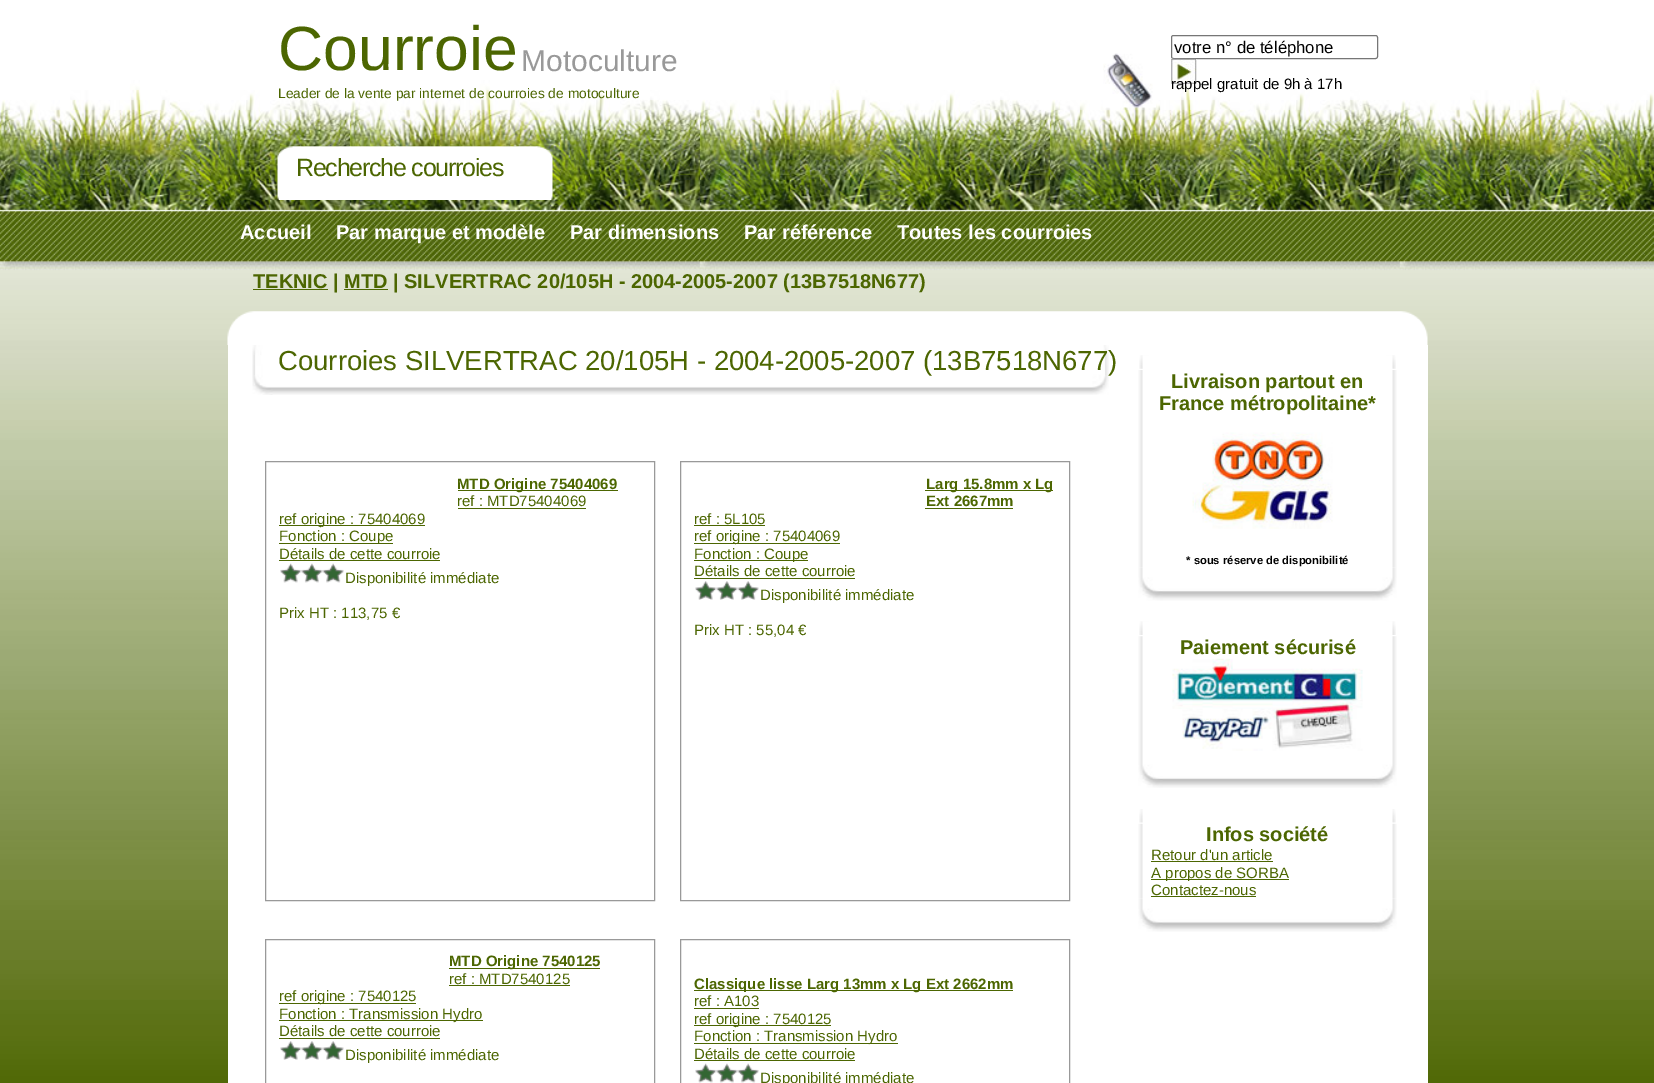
%!PS-Adobe-3.0
%%BoundingBox: 0 0 1654 1083
%%LanguageLevel: 3
%%Pages: 1
%%EndComments
%%BeginProlog
/setink { 3 { 255 div 3 1 roll } repeat setrgbcolor } def
/usefont { [ exch dup neg 0 0 3 -1 roll 0 0 ] selectfont } def
/drawtext { setink usefont moveto show } def
/fillbox { setink rectfill } def
/rrect { 5 dict begin { /r /h /w /y /x } { exch def } forall
  x r add y moveto x w add y 2 copy h add r arct x w add y h add x 1 index r arct
  x y h add x y r arct x y 2 copy exch w add exch r arct closepath end } def
/drawimage { 5 dict begin { /h /w /y /x /name } { exch def } forall
  gsave x y translate w h scale
  w h 8 [w 0 0 h 0 0] name (r) file false 3 colorimage grestore end } def
%%EndProlog
%%BeginSetup
<< /PageSize [1654 1083] >> setpagedevice
%%EndSetup
%%Page: 1 1
0 1083 translate 1 -1 scale
4 setmiterlimit
0 0 1654 1083 255 255 255 fillbox
(assets/img1.rgb) 0 0 1654 1083 drawimage
(Courroie) 278 70 /LiberationSans-Regular 62.5 76 102 1 drawtext
(Motoculture) 521 71 /LiberationSans-Regular 30 153 153 153 drawtext
(Leader de la vente par internet de courroies de motoculture) 278 98 /LiberationSans-Regular 13.75 76 102 1 drawtext
(assets/img2.rgb) 277 146 276 54 drawimage
/LiberationSans-Regular 25 usefont
296 176 moveto -1.25 0 (Recherche courroies) ashow
118 118 118 setink
1171.5 35.5 206 23 2 rrect stroke
(votre n° de téléphone) 1174 53 /LiberationSans-Regular 16.75 0 0 0 drawtext
(assets/img3.rgb) 1171 58 26 26 drawimage
(assets/img4.rgb) 1103 53 53 55 drawimage
(rappel gratuit de 9h à 17h) 1171 89 /LiberationSans-Regular 15 0 0 0 drawtext
(Accueil) 240 239 /LiberationSans-Bold 20 255 255 255 drawtext
(Par marque et modèle) 336 239 /LiberationSans-Bold 20 255 255 255 drawtext
(Par dimensions) 570 239 /LiberationSans-Bold 20 255 255 255 drawtext
(Par référence) 744 239 /LiberationSans-Bold 20 255 255 255 drawtext
(Toutes les courroies) 897 239 /LiberationSans-Bold 20 255 255 255 drawtext
253 289 75 1 76 102 1 fillbox
(TEKNIC | MTD | SILVERTRAC 20/105H - 2004-2005-2007 \(13B7518N677\)) 253 288 /LiberationSans-Bold 20 76 102 1 drawtext
344 289 44 1 76 102 1 fillbox
(assets/img5.rgb) 227 311 1201 34 drawimage
228 345 1200 738 255 255 255 fillbox
(assets/img6.rgb) 252 345 857 50 drawimage
(Courroies SILVERTRAC 20/105H - 2004-2005-2007 \(13B7518N677\)) 278 370 /LiberationSans-Regular 27.5 76 102 1 drawtext
153 153 153 setink
265.5 461.5 389 439 rectstroke
458 490 160 1 76 102 1 fillbox
(MTD Origine 75404069) 457 489 /LiberationSans-Bold 15 76 102 1 drawtext
(ref : MTD75404069) 457 506 /LiberationSans-Regular 15 76 102 1 drawtext
458 508 128 1 76 102 1 fillbox
279 525 146 1 76 102 1 fillbox
(ref origine : 75404069) 279 524 /LiberationSans-Regular 15 76 102 1 drawtext
279 543 114 1 76 102 1 fillbox
(Fonction : Coupe) 279 541 /LiberationSans-Regular 15 76 102 1 drawtext
(Détails de cette courroie) 279 559 /LiberationSans-Regular 15 76 102 1 drawtext
279 560 161 1 76 102 1 fillbox
(assets/img7.rgb) 280 563 64 20 drawimage
(Disponibilité immédiate) 345 583 /LiberationSans-Regular 15 76 102 1 drawtext
(Prix HT : 113,75 €) 279 618 /LiberationSans-Regular 15 76 102 1 drawtext
153 153 153 setink
680.5 461.5 389 439 rectstroke
925 490 128 1 76 102 1 fillbox
(Larg 15.8mm x Lg) 926 489 /LiberationSans-Bold 15 76 102 1 drawtext
(Ext 2667mm) 926 506 /LiberationSans-Bold 15 76 102 1 drawtext
925 508 88 1 76 102 1 fillbox
(ref : 5L105) 694 524 /LiberationSans-Regular 15 76 102 1 drawtext
694 525 71 1 76 102 1 fillbox
694 543 146 1 76 102 1 fillbox
(ref origine : 75404069) 694 541 /LiberationSans-Regular 15 76 102 1 drawtext
694 560 114 1 76 102 1 fillbox
(Fonction : Coupe) 694 559 /LiberationSans-Regular 15 76 102 1 drawtext
(Détails de cette courroie) 694 576 /LiberationSans-Regular 15 76 102 1 drawtext
694 578 161 1 76 102 1 fillbox
(assets/img8.rgb) 695 581 64 19 drawimage
(Disponibilité immédiate) 760 600 /LiberationSans-Regular 15 76 102 1 drawtext
(Prix HT : 55,04 €) 694 635 /LiberationSans-Regular 15 76 102 1 drawtext
153 153 153 setink
265.5 939.5 389 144 rectstroke
449 968 151 1 76 102 1 fillbox
(MTD Origine 7540125) 449 966 /LiberationSans-Bold 15 76 102 1 drawtext
(ref : MTD7540125) 449 984 /LiberationSans-Regular 15 76 102 1 drawtext
449 985 121 1 76 102 1 fillbox
279 1003 137 1 76 102 1 fillbox
(ref origine : 7540125) 279 1001 /LiberationSans-Regular 15 76 102 1 drawtext
279 1020 204 1 76 102 1 fillbox
(Fonction : Transmission Hydro) 279 1019 /LiberationSans-Regular 15 76 102 1 drawtext
(Détails de cette courroie) 279 1036 /LiberationSans-Regular 15 76 102 1 drawtext
279 1038 161 1 76 102 1 fillbox
(assets/img9.rgb) 280 1041 64 19 drawimage
(Disponibilité immédiate) 345 1060 /LiberationSans-Regular 15 76 102 1 drawtext
153 153 153 setink
680.5 939.5 389 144 rectstroke
694 990 319 1 76 102 1 fillbox
(Classique lisse Larg 13mm x Lg Ext 2662mm) 694 989 /LiberationSans-Bold 15 76 102 1 drawtext
(ref : A103) 694 1006 /LiberationSans-Regular 15 76 102 1 drawtext
694 1008 65 1 76 102 1 fillbox
694 1025 137 1 76 102 1 fillbox
(ref origine : 7540125) 694 1024 /LiberationSans-Regular 15 76 102 1 drawtext
694 1043 204 1 76 102 1 fillbox
(Fonction : Transmission Hydro) 694 1041 /LiberationSans-Regular 15 76 102 1 drawtext
(Détails de cette courroie) 694 1059 /LiberationSans-Regular 15 76 102 1 drawtext
694 1060 161 1 76 102 1 fillbox
(assets/img7.rgb) 695 1063 64 20 drawimage
(Disponibilité immédiate) 760 1083 /LiberationSans-Regular 15 76 102 1 drawtext
(assets/img10.rgb) 1139 355 257 14 drawimage
(assets/img11.rgb) 1138 370 259 198 drawimage
(Livraison partout en) 1171 388 /LiberationSans-Bold 20 76 102 1 drawtext
(France métropolitaine*) 1159 410 /LiberationSans-Bold 20 76 102 1 drawtext
(assets/img12.rgb) 1192 432 141 97 drawimage
(* sous réserve de disponibilité) 1186 564 /LiberationSans-Bold 11.25 0 0 0 drawtext
(assets/img13.rgb) 1138 567 259 34 drawimage
(assets/img14.rgb) 1139 621 257 14 drawimage
(assets/img15.rgb) 1138 636 259 119 drawimage
(Paiement sécurisé) 1180 654 /LiberationSans-Bold 20 76 102 1 drawtext
(assets/img16.rgb) 1172 658 191 93 drawimage
(assets/img17.rgb) 1138 755 259 33 drawimage
(assets/img18.rgb) 1139 809 257 14 drawimage
(assets/img19.rgb) 1138 823 259 76 drawimage
(Infos société) 1206 841 /LiberationSans-Bold 20 76 102 1 drawtext
(Retour d'un article) 1151 860 /LiberationSans-Regular 15 76 102 1 drawtext
1151 861 122 1 76 102 1 fillbox
1151 879 138 1 76 102 1 fillbox
(A propos de SORBA) 1151 878 /LiberationSans-Regular 15 76 102 1 drawtext
(Contactez-nous) 1151 895 /LiberationSans-Regular 15 76 102 1 drawtext
1151 896 105 1 76 102 1 fillbox
(assets/img20.rgb) 1138 899 259 33 drawimage
showpage
%%EOF
